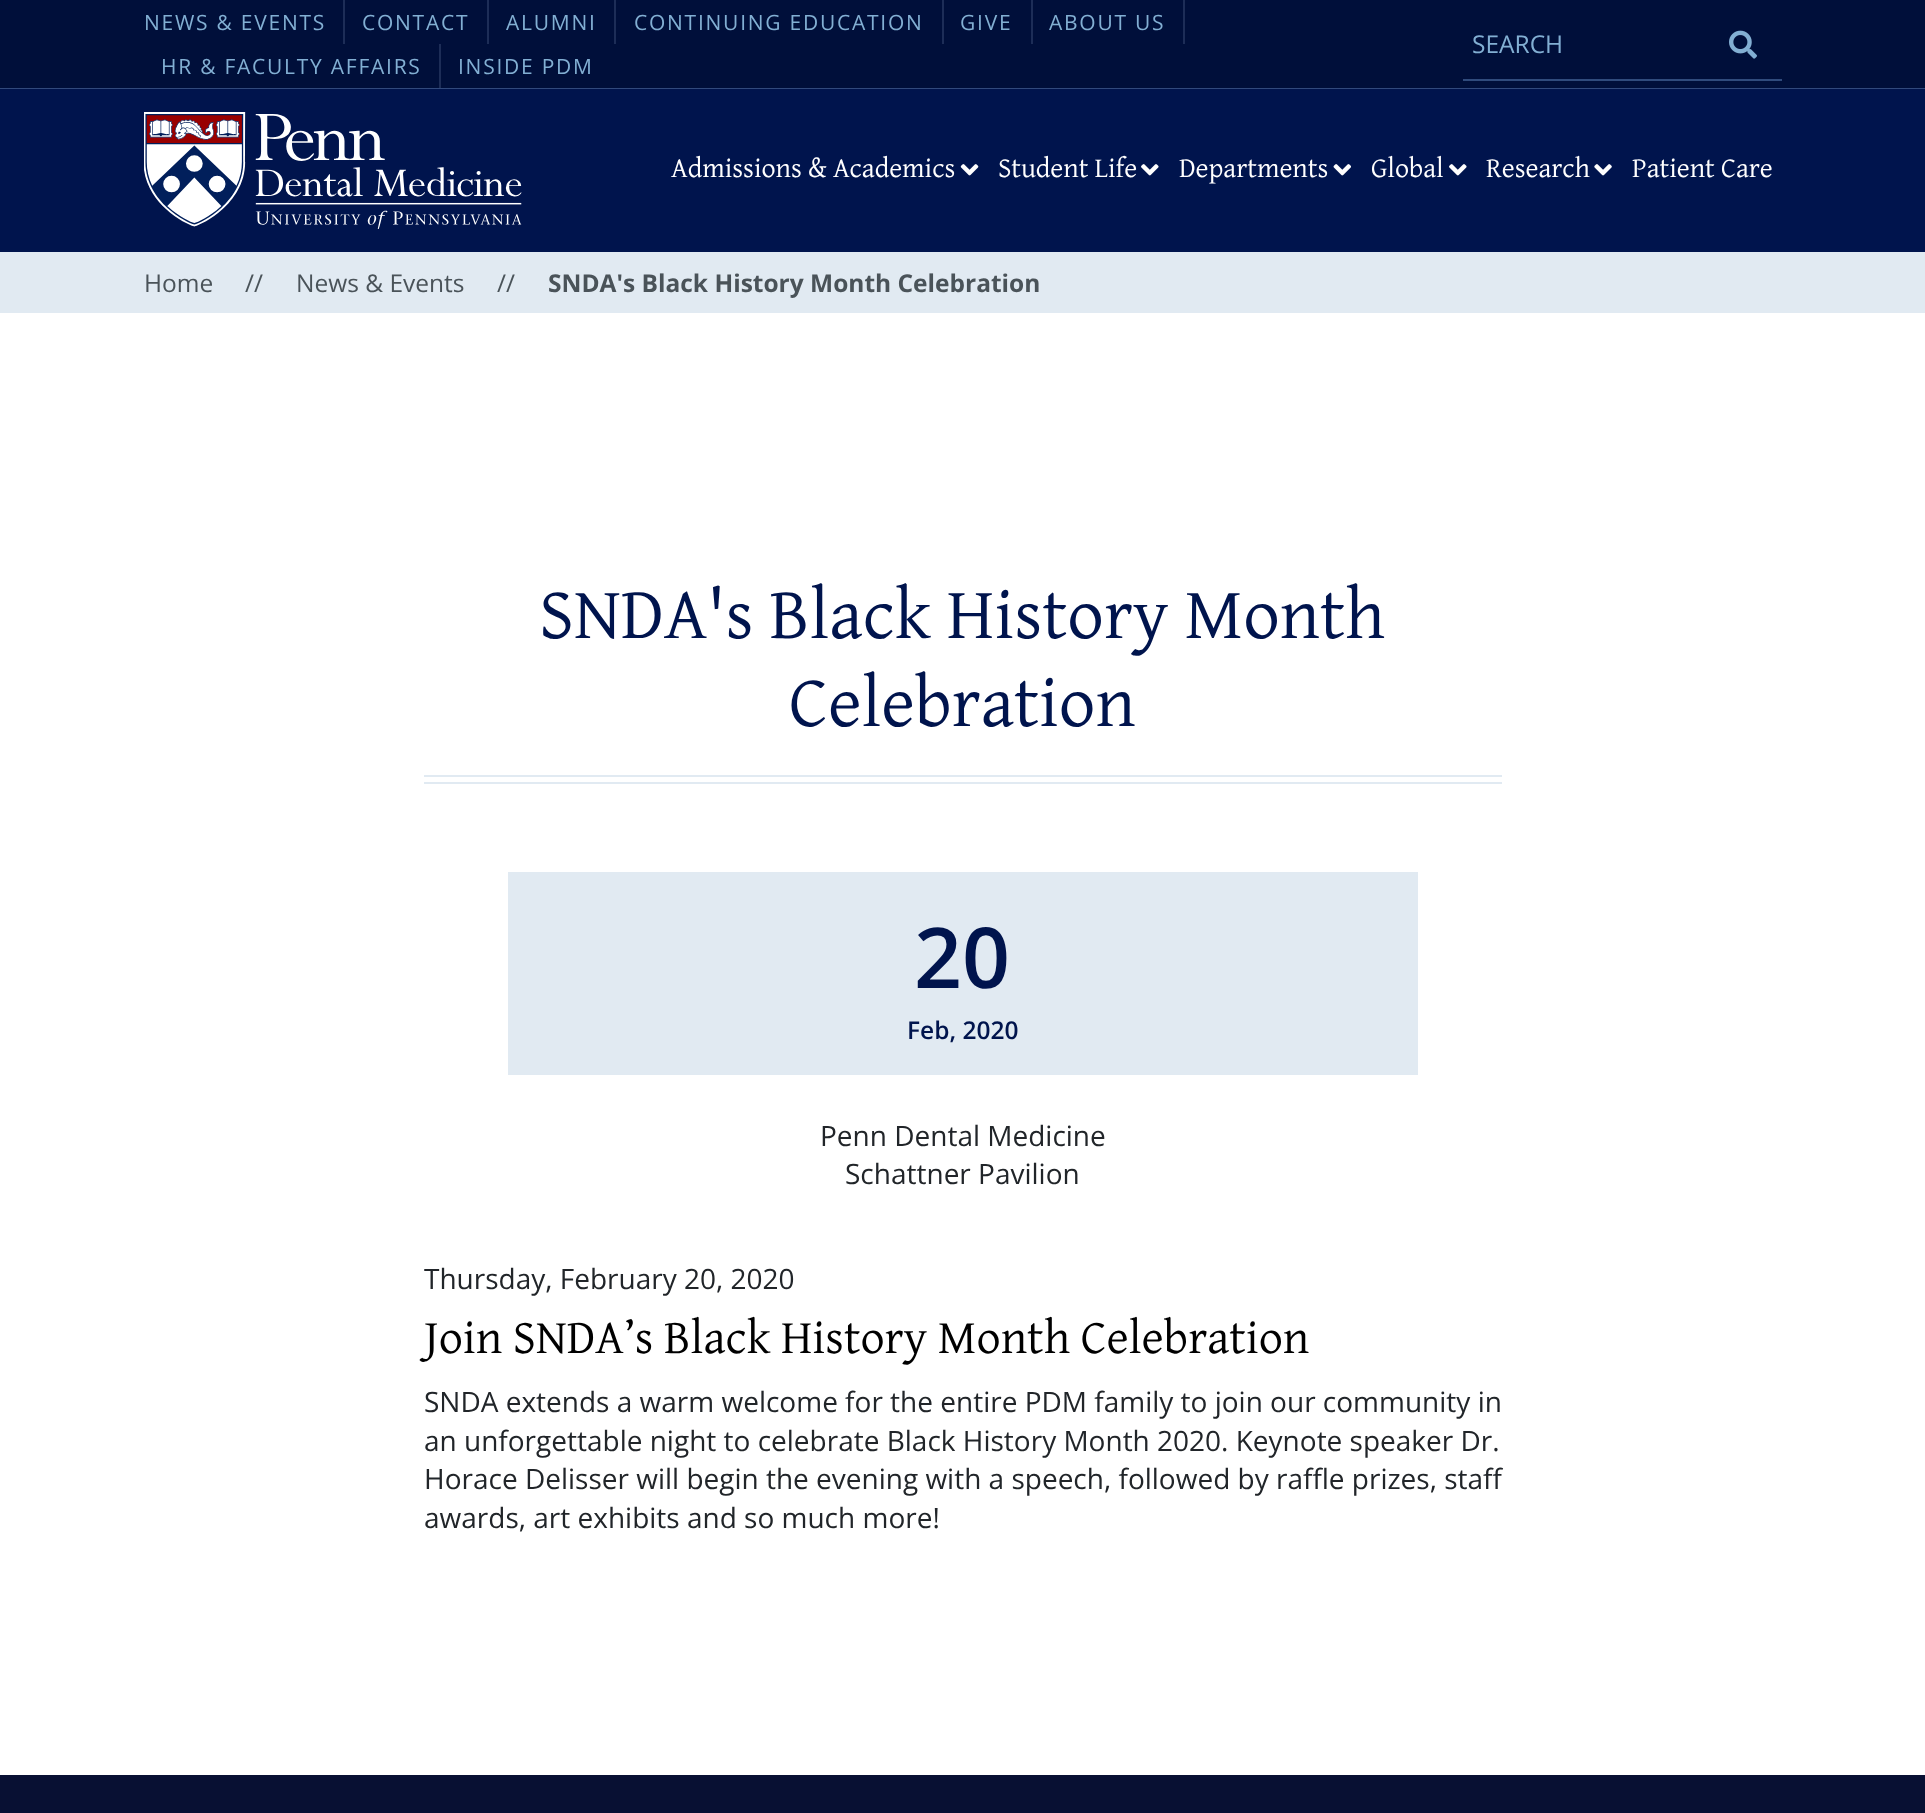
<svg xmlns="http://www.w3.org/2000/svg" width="1925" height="1813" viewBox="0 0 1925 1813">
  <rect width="100%" height="100%" fill="rgb(255,255,255)"/>
  <rect x="0" y="0" width="1925" height="88" fill="rgb(0,15,58)"/>
  <rect x="0" y="88" width="1925" height="1" fill="rgb(49,73,124)"/>
  <rect x="343" y="0" width="2" height="44" fill="rgb(29,45,87)"/>
  <text x="144" y="30" font-family="Open Sans" font-size="21" letter-spacing="1.75" fill="rgb(130,175,211)">NEWS &amp; EVENTS</text>
  <rect x="487" y="0" width="2" height="44" fill="rgb(29,45,87)"/>
  <text x="362" y="30" font-family="Open Sans" font-size="21" letter-spacing="1.75" fill="rgb(130,175,211)">CONTACT</text>
  <rect x="614" y="0" width="2" height="44" fill="rgb(29,45,87)"/>
  <text x="506" y="30" font-family="Open Sans" font-size="21" letter-spacing="1.75" fill="rgb(130,175,211)">ALUMNI</text>
  <rect x="942" y="0" width="2" height="44" fill="rgb(29,45,87)"/>
  <text x="634" y="30" font-family="Open Sans" font-size="21" letter-spacing="1.75" fill="rgb(130,175,211)">CONTINUING EDUCATION</text>
  <rect x="1031" y="0" width="2" height="44" fill="rgb(29,45,87)"/>
  <text x="960" y="30" font-family="Open Sans" font-size="21" letter-spacing="1.75" fill="rgb(130,175,211)">GIVE</text>
  <rect x="1183" y="0" width="2" height="44" fill="rgb(29,45,87)"/>
  <text x="1049" y="30" font-family="Open Sans" font-size="21" letter-spacing="1.75" fill="rgb(130,175,211)">ABOUT US</text>
  <rect x="439" y="44" width="2" height="44" fill="rgb(29,45,87)"/>
  <g font-family="Open Sans" font-size="21" letter-spacing="1.75" fill="rgb(130,175,211)">
    <text x="161" y="74">HR &amp; FACULTY AFFAIRS</text>
    <text x="458" y="74">INSIDE PDM</text>
  </g>
  <rect x="1463" y="79" width="319" height="2" fill="rgb(48,75,124)"/>
  <text x="1472" y="53" font-family="Open Sans" font-size="24.5" fill="rgb(130,175,211)">SEARCH</text>
  <image x="1729" y="30" width="28" height="29" href="pic1.png"/>
  <rect x="0" y="89" width="1925" height="163" fill="rgb(0,20,77)"/>
  <image x="144" y="112" width="378" height="117" href="pic2.png"/>
  <text x="671" y="177" font-family="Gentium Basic" font-size="28" fill="rgb(255,255,255)">Admissions &amp; Academics</text>
  <image x="960" y="164" width="19" height="12" href="pic3.png"/>
  <text x="998" y="177" font-family="Gentium Basic" font-size="28" fill="rgb(255,255,255)">Student Life</text>
  <image x="1141" y="164" width="18" height="12" href="pic4.png"/>
  <text x="1179" y="177" font-family="Gentium Basic" font-size="28" fill="rgb(255,255,255)">Departments</text>
  <image x="1333" y="164" width="18" height="12" href="pic5.png"/>
  <text x="1371" y="177" font-family="Gentium Basic" font-size="28" fill="rgb(255,255,255)">Global</text>
  <image x="1449" y="164" width="18" height="12" href="pic4.png"/>
  <text x="1486" y="177" font-family="Gentium Basic" font-size="28" fill="rgb(255,255,255)">Research</text>
  <image x="1594" y="164" width="18" height="12" href="pic6.png"/>
  <text x="1632" y="177" font-family="Gentium Basic" font-size="28" fill="rgb(255,255,255)">Patient Care</text>
  <rect x="0" y="252" width="1925" height="61" fill="rgb(225,234,242)"/>
  <g font-family="Open Sans" font-size="24.5" fill="rgb(74,83,89)">
    <text x="144" y="292">Home</text>
    <text x="245" y="292">//</text>
    <text x="296" y="292">News &amp; Events</text>
    <text x="497" y="292">//</text>
  </g>
  <text x="548" y="292" font-family="Open Sans" font-size="24.5" font-weight="bold" fill="rgb(74,83,89)">SNDA's Black History Month Celebration</text>
  <g font-family="Gentium Basic" font-size="72.75" fill="rgb(0,20,77)">
    <text x="539" y="638">SNDA's Black History Month</text>
    <text x="789" y="726">Celebration</text>
  </g>
  <rect x="424" y="775" width="1078" height="2" fill="rgb(225,234,242)"/>
  <rect x="424" y="782" width="1078" height="2" fill="rgb(225,234,242)"/>
  <rect x="508" y="872" width="910" height="203" fill="rgb(225,234,242)"/>
  <text x="914" y="988" font-family="Open Sans" font-size="84" font-weight="600" fill="rgb(0,20,77)">20</text>
  <text x="907" y="1039" font-family="Open Sans" font-size="24.5" font-weight="600" fill="rgb(0,20,77)">Feb, 2020</text>
  <g font-family="Open Sans" font-size="28" fill="rgb(33,37,41)">
    <text x="820" y="1146">Penn Dental Medicine</text>
    <text x="845" y="1184">Schattner Pavilion</text>
    <text x="424" y="1289">Thursday, February 20, 2020</text>
  </g>
  <text x="424" y="1353" font-family="Gentium Basic" font-size="48" fill="rgb(0,0,0)">Join SNDA’s Black History Month Celebration</text>
  <g font-family="Open Sans" font-size="28" fill="rgb(33,37,41)">
    <text>
      <tspan x="424" y="1412">SNDA extends a warm welcome for the entire PDM family to join our community in</tspan>
      <tspan x="424" y="1451">an unforgettable night to celebrate Black History Month 2020. Keynote speaker Dr.</tspan>
      <tspan x="424" y="1489">Horace Delisser will begin the evening with a speech, followed by raffle prizes, staff</tspan>
      <tspan x="424" y="1528">awards, art exhibits and so much more!</tspan>
    </text>
  </g>
  <rect x="0" y="1775" width="1925" height="38" fill="rgb(8,16,51)"/>
</svg>
